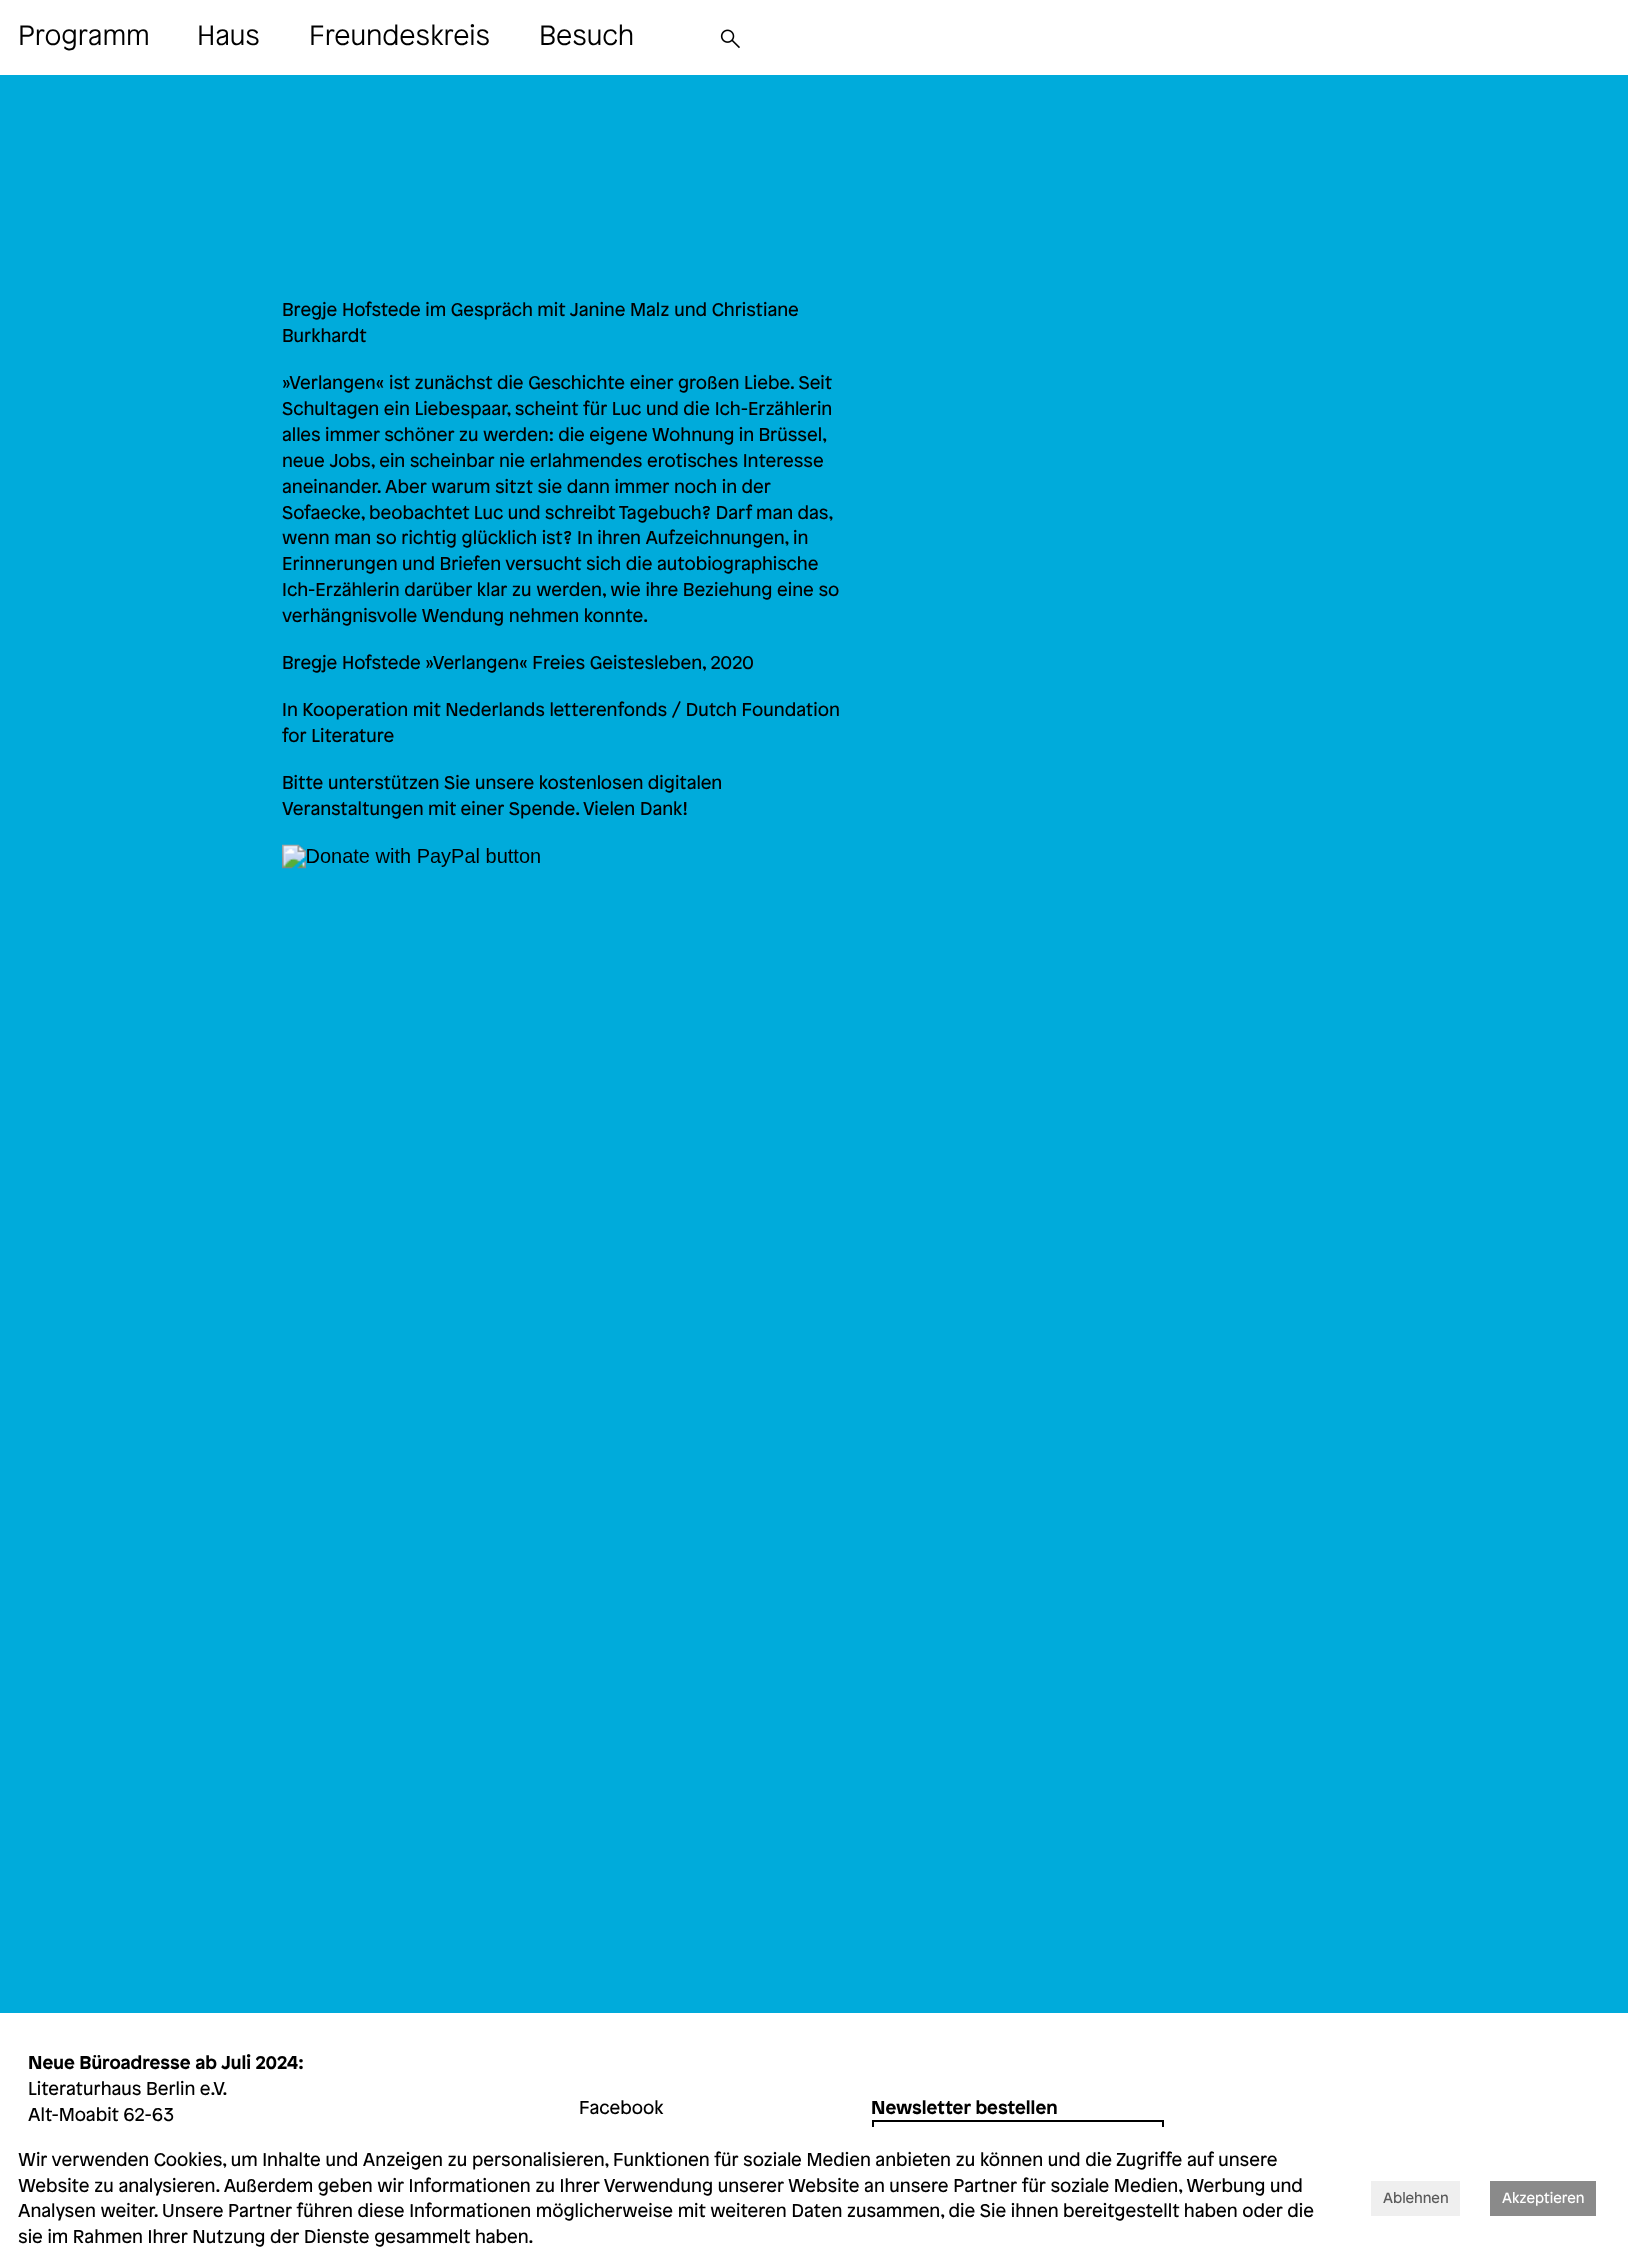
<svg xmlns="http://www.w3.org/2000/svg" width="1628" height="2268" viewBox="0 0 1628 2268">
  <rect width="100%" height="100%" fill="rgb(255,255,255)"/>
  <g font-family="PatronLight" font-size="27.75" font-weight="300" fill="rgb(0,0,0)">
    <text x="18" y="45">Programm</text>
    <text x="197" y="45">Haus</text>
    <text x="309" y="45">Freundeskreis</text>
    <text x="539" y="45">Besuch</text>
  </g>
  <image x="720" y="29" width="20" height="20" href="pic1.png"/>
  <rect x="0" y="75" width="1628" height="1938" fill="rgb(0,171,219)"/>
  <g font-family="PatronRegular" font-size="18.45" fill="rgb(0,0,0)">
    <text>
      <tspan x="282" y="316">Bregje Hofstede im Gespräch mit Janine Malz und Christiane</tspan>
      <tspan x="282" y="342">Burkhardt</tspan>
    </text>
    <text>
      <tspan x="282" y="389">»Verlangen« ist zunächst die Geschichte einer großen Liebe. Seit</tspan>
      <tspan x="282" y="415">Schultagen ein Liebespaar, scheint für Luc und die Ich-Erzählerin</tspan>
      <tspan x="282" y="441" word-spacing="-0.25">alles immer schöner zu werden: die eigene Wohnung in Brüssel,</tspan>
      <tspan x="282" y="467">neue Jobs, ein scheinbar nie erlahmendes erotisches Interesse</tspan>
      <tspan x="282" y="493">aneinander. Aber warum sitzt sie dann immer noch in der</tspan>
      <tspan x="282" y="519" word-spacing="-0.25">Sofaecke, beobachtet Luc und schreibt Tagebuch? Darf man das,</tspan>
      <tspan x="282" y="544">wenn man so richtig glücklich ist? In ihren Aufzeichnungen, in</tspan>
      <tspan x="282" y="570">Erinnerungen und Briefen versucht sich die autobiographische</tspan>
      <tspan x="282" y="596">Ich-Erzählerin darüber klar zu werden, wie ihre Beziehung eine so</tspan>
      <tspan x="282" y="622">verhängnisvolle Wendung nehmen konnte.</tspan>
    </text>
    <text x="282" y="669">Bregje Hofstede »Verlangen« Freies Geistesleben, 2020</text>
    <text>
      <tspan x="282" y="716">In Kooperation mit Nederlands letterenfonds / Dutch Foundation</tspan>
      <tspan x="282" y="742">for Literature</tspan>
    </text>
    <text>
      <tspan x="282" y="789">Bitte unterstützen Sie unsere kostenlosen digitalen</tspan>
      <tspan x="282" y="815">Veranstaltungen mit einer Spende. Vielen Dank!</tspan>
    </text>
  </g>
  <image x="282" y="844" width="258" height="25" href="pic2.png"/>
  <text x="28" y="2069" font-family="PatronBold" font-size="18.45" font-weight="bold" fill="rgb(0,0,0)">Neue Büroadresse ab Juli 2024:</text>
  <g font-family="PatronRegular" font-size="18.45" fill="rgb(0,0,0)">
    <text>
      <tspan x="28" y="2095">Literaturhaus Berlin e.V.</tspan>
      <tspan x="28" y="2121">Alt-Moabit 62-63</tspan>
    </text>
    <text x="579" y="2114">Facebook</text>
  </g>
  <text x="871" y="2114" font-family="PatronBold" font-size="18.45" font-weight="bold" fill="rgb(0,0,0)">Newsletter bestellen</text>
  <rect x="873" y="2121" width="290" height="35" fill="none" stroke="rgb(0,0,0)" stroke-width="2"/>
  <rect x="872" y="2127" width="292" height="30" fill="rgb(255,255,255)"/>
  <g font-family="PatronRegular" font-size="18.45" fill="rgb(0,0,0)">
    <text>
      <tspan x="18" y="2166">Wir verwenden Cookies, um Inhalte und Anzeigen zu personalisieren, Funktionen für soziale Medien anbieten zu können und die Zugriffe auf unsere</tspan>
      <tspan x="18" y="2192">Website zu analysieren. Außerdem geben wir Informationen zu Ihrer Verwendung unserer Website an unsere Partner für soziale Medien, Werbung und</tspan>
      <tspan x="18" y="2217">Analysen weiter. Unsere Partner führen diese Informationen möglicherweise mit weiteren Daten zusammen, die Sie ihnen bereitgestellt haben oder die</tspan>
      <tspan x="18" y="2243">sie im Rahmen Ihrer Nutzung der Dienste gesammelt haben.</tspan>
    </text>
  </g>
  <rect x="1371" y="2181" width="89" height="35" fill="rgb(239,239,239)"/>
  <text x="1383" y="2203" font-family="PatronRegular" font-size="14.75" fill="rgb(90,90,90)">Ablehnen</text>
  <rect x="1490" y="2181" width="106" height="35" fill="rgb(138,138,138)"/>
  <text x="1502" y="2203" font-family="PatronRegular" font-size="14.75" fill="rgb(255,255,255)">Akzeptieren</text>
</svg>
